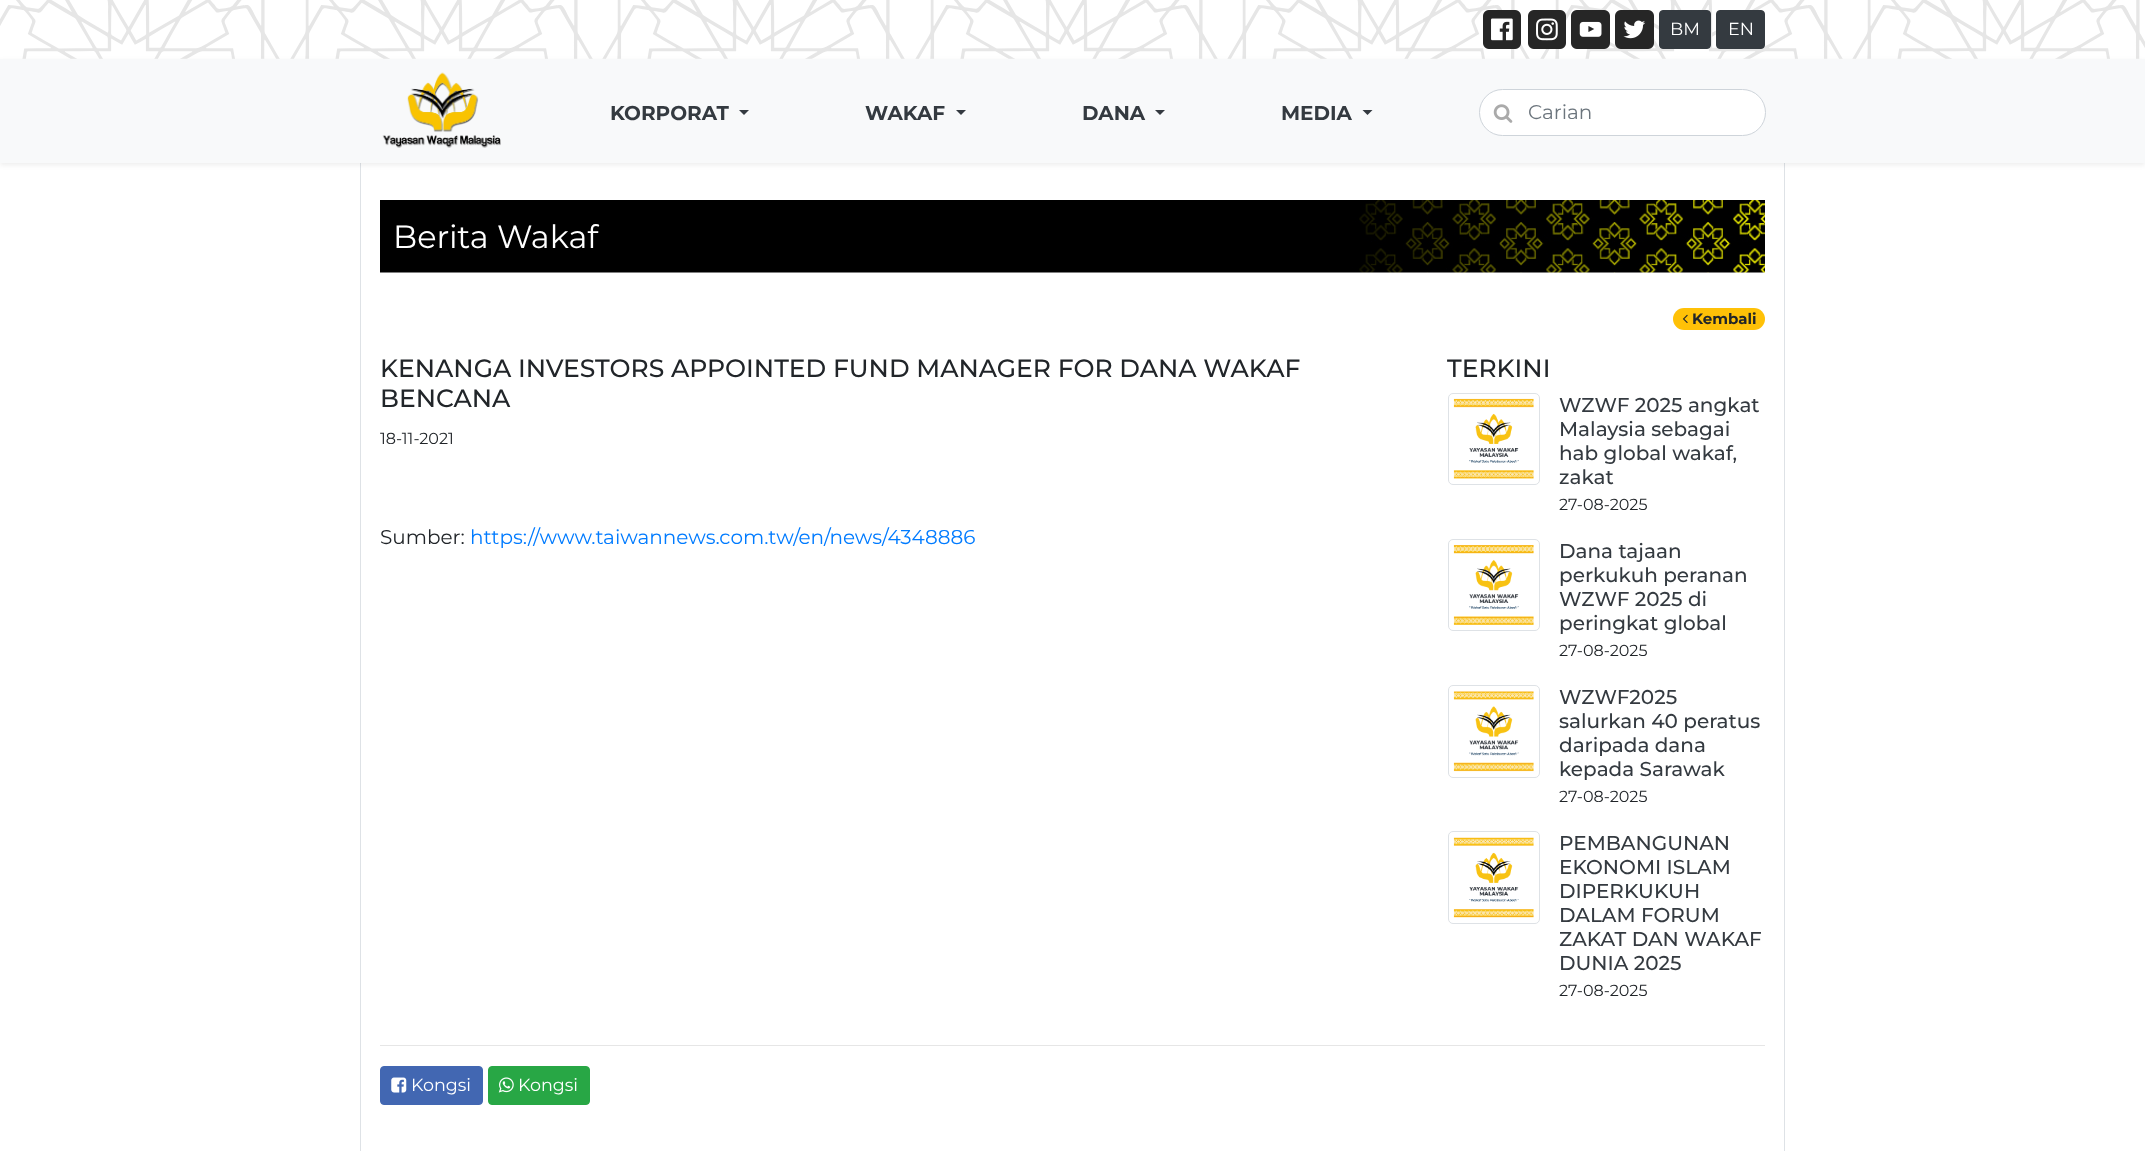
<svg xmlns="http://www.w3.org/2000/svg" width="2145" height="1151" viewBox="0 0 2145 1151">
  <rect width="100%" height="100%" fill="rgb(255,255,255)"/>
  <image x="0" y="0" width="2145" height="59" href="pic1.png"/>
  <image x="1483" y="10" width="38" height="39" href="pic2.png"/>
  <image x="1528" y="10" width="38" height="39" href="pic3.png"/>
  <image x="1571" y="10" width="39" height="39" href="pic4.png"/>
  <image x="1615" y="10" width="39" height="39" href="pic5.png"/>
  <rect x="1659.5" y="10.5" width="51" height="38" rx="3.5" fill="rgb(52,58,64)" stroke="rgb(52,58,64)"/>
  <text x="1670" y="35" font-family="Montserrat" font-size="17.5" fill="rgb(255,255,255)">BM</text>
  <rect x="1716.5" y="10.5" width="48" height="38" rx="3.5" fill="rgb(52,58,64)" stroke="rgb(52,58,64)"/>
  <text x="1728" y="35" font-family="Montserrat" font-size="17.5" fill="rgb(255,255,255)">EN</text>
  <rect x="1784" y="163" width="1" height="988" fill="rgb(222,226,230)"/>
  <rect x="360" y="163" width="1" height="988" fill="rgb(222,226,230)"/>
  <rect x="0" y="61" width="2145" height="104" fill="rgba(0,0,0,0.07)" filter="blur(2.5px)"/>
  <rect x="0" y="59" width="2145" height="104" fill="rgb(248,249,250)"/>
  <image x="382" y="72" width="119" height="76" href="pic6.png"/>
  <text x="610" y="120" font-family="Montserrat" font-size="20" font-weight="bold" fill="rgb(52,58,64)">KORPORAT</text>
  <path d="M739 110H749L744 115Z" fill="rgb(52,58,64)"/>
  <text x="865" y="120" font-family="Montserrat" font-size="20" font-weight="bold" fill="rgb(52,58,64)">WAKAF</text>
  <path d="M956 110H966L961 115Z" fill="rgb(52,58,64)"/>
  <text x="1082" y="120" font-family="Montserrat" font-size="20" font-weight="bold" fill="rgb(52,58,64)">DANA</text>
  <path d="M1155 110H1165L1160 115Z" fill="rgb(52,58,64)"/>
  <text x="1281" y="120" font-family="Montserrat" font-size="20" font-weight="bold" fill="rgb(52,58,64)">MEDIA</text>
  <path d="M1362.5 110H1372.5L1367.5 115Z" fill="rgb(52,58,64)"/>
  <rect x="1479.5" y="89.5" width="286" height="46" rx="23" fill="rgb(255,255,255)" stroke="rgb(206,212,218)"/>
  <image x="1493" y="104" width="20" height="19" href="pic7.png"/>
  <text x="1528" y="119" font-family="Montserrat" font-size="20" fill="rgb(108,117,125)">Carian</text>
  <image x="380" y="200" width="1385" height="73" href="pic8.png"/>
  <text x="393" y="248" font-family="Montserrat" font-size="32" fill="rgb(255,255,255)">Berita Wakaf</text>
  <rect x="1673" y="308" width="92" height="22" rx="11" fill="rgb(255,193,7)"/>
  <image x="1682" y="314" width="6" height="9" href="pic9.png"/>
  <text x="1692" y="324" font-family="Montserrat" font-size="15" font-weight="bold" fill="rgb(33,37,41)">Kembali</text>
  <g font-family="Montserrat" font-size="25" font-weight="500" fill="rgb(33,37,41)">
    <text>
      <tspan x="380" y="377">KENANGA INVESTORS APPOINTED FUND MANAGER FOR DANA WAKAF</tspan>
      <tspan x="380" y="407">BENCANA</tspan>
    </text>
  </g>
  <text x="380" y="444" font-family="Montserrat" font-size="16" fill="rgb(33,37,41)">18-11-2021</text>
  <text x="380" y="544" font-family="Montserrat" font-size="20" fill="rgb(33,37,41)">Sumber:</text>
  <text x="470" y="544" font-family="Montserrat" font-size="20" fill="rgb(0,123,255)">https://www.taiwannews.com.tw/en/news/4348886</text>
  <text x="1447" y="377" font-family="Montserrat" font-size="25" font-weight="500" fill="rgb(33,37,41)">TERKINI</text>
  <rect x="1448.5" y="393.5" width="91" height="91" rx="4.5" fill="none" stroke="rgb(222,226,230)"/>
  <image x="1453" y="398" width="81" height="81" href="pic10.png"/>
  <g font-family="Montserrat" font-size="20" font-weight="500" fill="rgb(52,58,64)">
    <text>
      <tspan x="1559" y="412">WZWF 2025 angkat</tspan>
      <tspan x="1559" y="436">Malaysia sebagai</tspan>
      <tspan x="1559" y="460">hab global wakaf,</tspan>
      <tspan x="1559" y="484">zakat</tspan>
    </text>
  </g>
  <text x="1559" y="510" font-family="Montserrat" font-size="16" fill="rgb(33,37,41)">27-08-2025</text>
  <rect x="1448.5" y="539.5" width="91" height="91" rx="4.5" fill="none" stroke="rgb(222,226,230)"/>
  <image x="1453" y="545" width="81" height="80" href="pic11.png"/>
  <g font-family="Montserrat" font-size="20" font-weight="500" fill="rgb(52,58,64)">
    <text>
      <tspan x="1559" y="558">Dana tajaan</tspan>
      <tspan x="1559" y="582">perkukuh peranan</tspan>
      <tspan x="1559" y="606">WZWF 2025 di</tspan>
      <tspan x="1559" y="630">peringkat global</tspan>
    </text>
  </g>
  <text x="1559" y="656" font-family="Montserrat" font-size="16" fill="rgb(33,37,41)">27-08-2025</text>
  <rect x="1448.5" y="685.5" width="91" height="92" rx="4.5" fill="none" stroke="rgb(222,226,230)"/>
  <image x="1453" y="691" width="81" height="81" href="pic12.png"/>
  <g font-family="Montserrat" font-size="20" font-weight="500" fill="rgb(52,58,64)">
    <text>
      <tspan x="1559" y="704">WZWF2025</tspan>
      <tspan x="1559" y="728">salurkan 40 peratus</tspan>
      <tspan x="1559" y="752">daripada dana</tspan>
      <tspan x="1559" y="776">kepada Sarawak</tspan>
    </text>
  </g>
  <text x="1559" y="802" font-family="Montserrat" font-size="16" fill="rgb(33,37,41)">27-08-2025</text>
  <rect x="1448.5" y="831.5" width="91" height="92" rx="4.5" fill="none" stroke="rgb(222,226,230)"/>
  <image x="1453" y="837" width="81" height="81" href="pic13.png"/>
  <g font-family="Montserrat" font-size="20" font-weight="500" fill="rgb(52,58,64)">
    <text>
      <tspan x="1559" y="850">PEMBANGUNAN</tspan>
      <tspan x="1559" y="874">EKONOMI ISLAM</tspan>
      <tspan x="1559" y="898">DIPERKUKUH</tspan>
      <tspan x="1559" y="922">DALAM FORUM</tspan>
      <tspan x="1559" y="946">ZAKAT DAN WAKAF</tspan>
      <tspan x="1559" y="970">DUNIA 2025</tspan>
    </text>
  </g>
  <text x="1559" y="996" font-family="Montserrat" font-size="16" fill="rgb(33,37,41)">27-08-2025</text>
  <rect x="380" y="1045" width="1385" height="1" fill="rgb(230,230,230)"/>
  <rect x="380.5" y="1066.5" width="102" height="38" rx="3.5" fill="rgb(66,103,178)" stroke="rgb(66,103,178)"/>
  <image x="391" y="1077" width="16" height="16" href="pic14.png"/>
  <text x="411" y="1091" font-family="Montserrat" font-size="17.5" fill="rgb(255,255,255)">Kongsi</text>
  <rect x="488.5" y="1066.5" width="101" height="38" rx="3.5" fill="rgb(40,167,69)" stroke="rgb(40,167,69)"/>
  <image x="498" y="1077" width="16" height="16" href="pic15.png"/>
  <text x="518" y="1091" font-family="Montserrat" font-size="17.5" fill="rgb(255,255,255)">Kongsi</text>
</svg>
